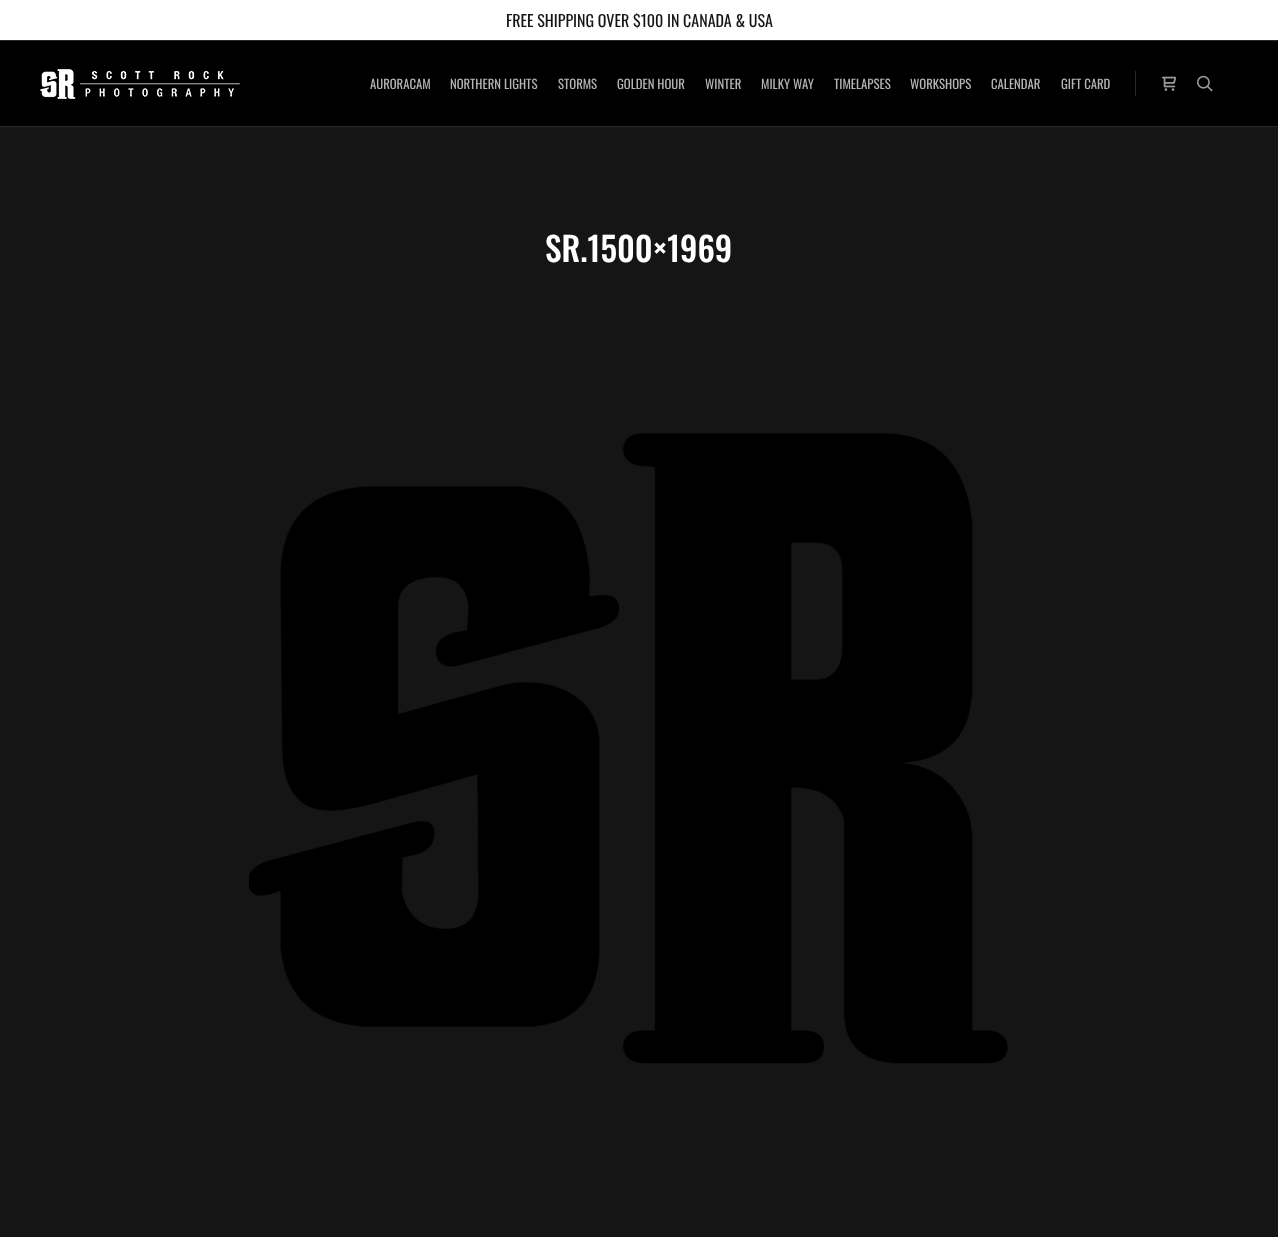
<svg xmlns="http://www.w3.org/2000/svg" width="1278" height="1237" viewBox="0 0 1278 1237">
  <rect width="100%" height="100%" fill="rgb(21,21,21)"/>
  <rect x="0" y="41" width="1278" height="85" fill="rgb(0,0,0)"/>
  <rect x="0" y="126" width="1278" height="1" fill="rgb(41,41,41)"/>
  <rect x="0" y="0" width="1278" height="40" fill="rgb(255,255,255)"/>
  <rect x="0" y="40" width="1278" height="1" fill="rgb(41,41,41)"/>
  <text x="506" y="27" font-family="Oswald" font-size="16" fill="rgb(21,21,21)">FREE SHIPPING OVER $100 IN CANADA &amp; USA</text>
  <image x="40" y="69" width="200" height="30" href="pic1.png"/>
  <g font-family="Oswald" font-size="12.75" fill="rgb(181,181,181)">
    <text x="370" y="89">AURORACAM</text>
    <text x="450" y="89">NORTHERN LIGHTS</text>
    <text x="558" y="89">STORMS</text>
    <text x="617" y="89">GOLDEN HOUR</text>
    <text x="705" y="89">WINTER</text>
    <text x="761" y="89">MILKY WAY</text>
    <text x="834" y="89">TIMELAPSES</text>
    <text x="910" y="89">WORKSHOPS</text>
    <text x="991" y="89">CALENDAR</text>
    <text x="1061" y="89">GIFT CARD</text>
  </g>
  <rect x="1135" y="71" width="1" height="25" fill="rgb(41,41,41)"/>
  <image x="1161" y="76" width="16" height="15" href="pic2.png"/>
  <image x="1197" y="75" width="16" height="17" href="pic3.png"/>
  <text x="545" y="262" font-family="Oswald" font-size="33.5" font-weight="500" fill="rgb(255,255,255)">SR.1500×1969</text>
  <image x="249" y="433" width="759" height="631" href="pic4.png"/>
</svg>
